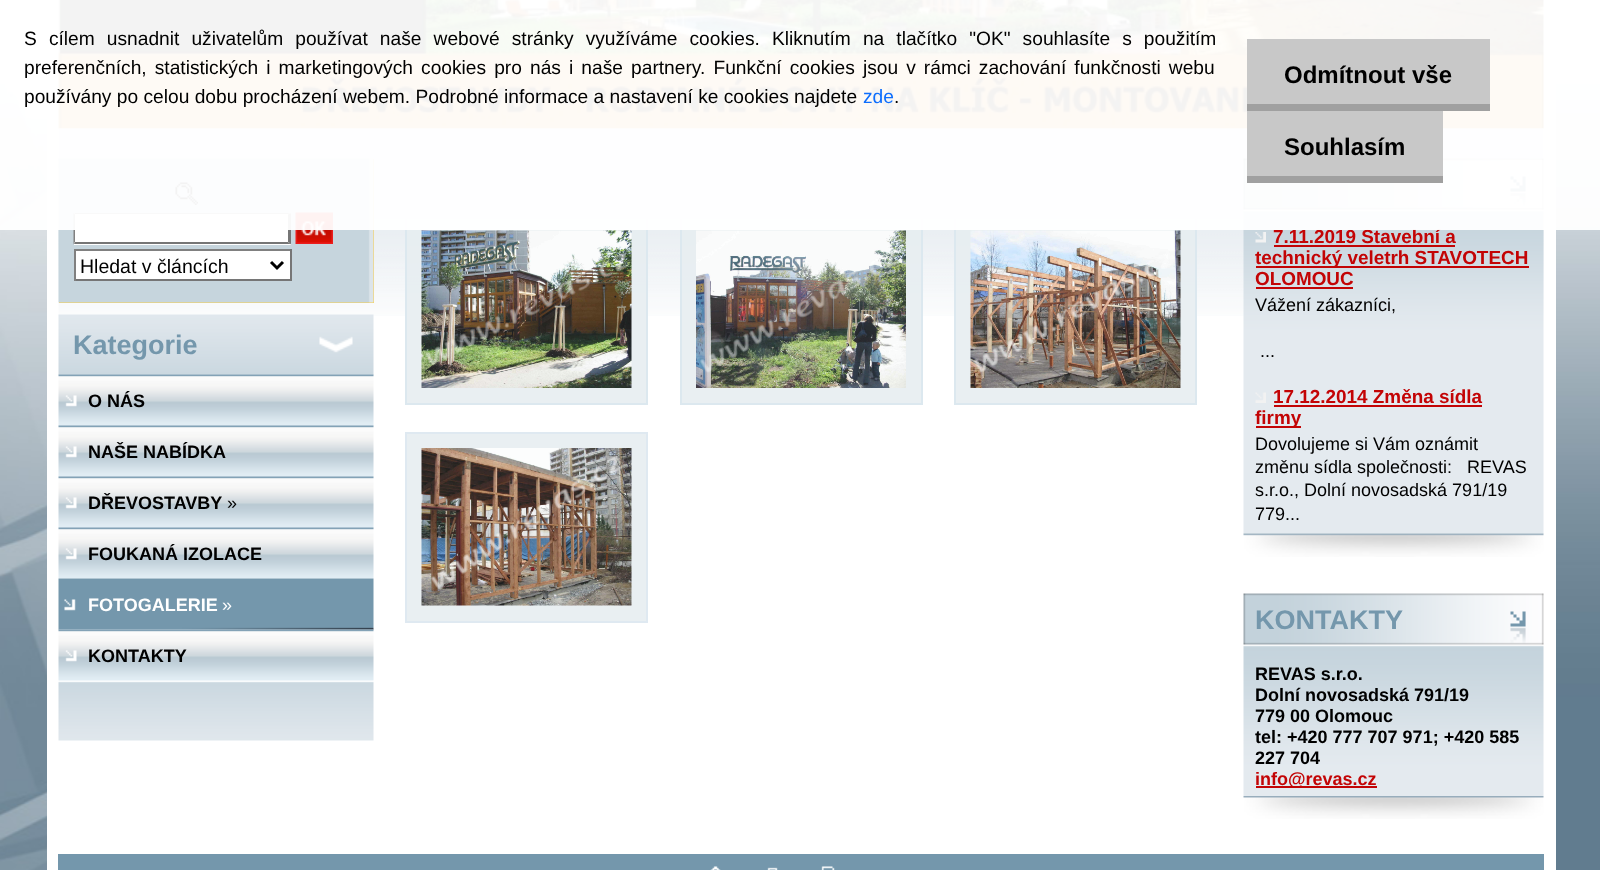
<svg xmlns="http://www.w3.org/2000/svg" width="1600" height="870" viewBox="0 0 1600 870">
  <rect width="100%" height="100%" fill="rgb(255,255,255)"/>
  <image x="0" y="0" width="1600" height="870" href="pic1.png"/>
  <rect x="47" y="0" width="1509" height="870" fill="rgb(255,255,255)"/>
  <image x="58" y="0" width="1486" height="129" href="pic2.png"/>
  <image x="58" y="128" width="1486" height="188" href="pic3.png"/>
  <rect x="59" y="159" width="315" height="144" fill="rgb(249,207,74)"/>
  <image x="58" y="158" width="316" height="145" href="pic4.png"/>
  <image x="175" y="182" width="23" height="23" href="pic5.png"/>
  <rect x="74" y="213" width="217" height="32" fill="rgb(255,255,255)"/>
  <path d="M74 213H291L288 214H75Z" fill="rgb(128,128,128)"/>
  <path d="M291 213V244.5L288 241.5V214.5Z" fill="rgb(118,118,118)"/>
  <path d="M291 244H74L75 242H288Z" fill="rgb(118,118,118)"/>
  <path d="M73.5 244.5V213L75 214.5V241.5Z" fill="rgb(128,128,128)"/>
  <image x="295" y="212" width="38" height="32" href="pic6.png"/>
  <rect x="407" y="229" width="239" height="174" fill="rgba(231,237,241,0.9)"/>
  <rect x="406" y="216" width="241" height="188" fill="none" stroke="rgb(220,232,239)" stroke-width="2"/>
  <rect x="682" y="229" width="239" height="174" fill="rgba(231,237,241,0.9)"/>
  <rect x="681" y="216" width="241" height="188" fill="none" stroke="rgb(220,232,239)" stroke-width="2"/>
  <rect x="956" y="229" width="239" height="174" fill="rgba(231,237,241,0.9)"/>
  <rect x="955" y="216" width="241" height="188" fill="none" stroke="rgb(220,232,239)" stroke-width="2"/>
  <image x="1243" y="158" width="301" height="376" href="pic17.png"/>
  <text x="1273" y="243" font-family="Liberation Sans" font-size="18.9" font-weight="bold" fill="rgb(195,4,5)">7.11.2019 Stavební a</text>
  <rect x="0" y="0" width="1600" height="230" fill="rgba(255,255,255,0.95)"/>
  <g font-family="Liberation Sans" font-size="19.2" fill="rgb(0,0,0)">
    <text>
      <tspan x="24" y="45" word-spacing="6.75">S cílem usnadnit uživatelům používat naše webové stránky využíváme cookies. Kliknutím na tlačítko "OK" souhlasíte s použitím</tspan>
      <tspan x="24" y="74" word-spacing="2.75">preferenčních, statistických i marketingových cookies pro nás i naše partnery. Funkční cookies jsou v rámci zachování funkčnosti webu</tspan>
      <tspan x="24" y="103">používány po celou dobu procházení webem. Podrobné informace a nastavení ke cookies najdete</tspan>
    </text>
  </g>
  <text x="863" y="103" font-family="Liberation Sans" font-size="19.2" fill="rgb(13,110,253)">zde</text>
  <text x="894" y="103" font-family="Liberation Sans" font-size="19.2" fill="rgb(0,0,0)">.</text>
  <rect x="1247" y="39" width="243" height="65" fill="rgb(200,200,200)"/>
  <rect x="1247" y="104" width="243" height="7" fill="rgb(160,160,160)"/>
  <text x="1284" y="83" font-family="Liberation Sans" font-size="24" font-weight="bold" fill="rgb(0,0,0)">Odmítnout vše</text>
  <rect x="1247" y="111" width="196" height="65" fill="rgb(200,200,200)"/>
  <rect x="1247" y="176" width="196" height="7" fill="rgb(160,160,160)"/>
  <text x="1284" y="155" font-family="Liberation Sans" font-size="24" font-weight="bold" fill="rgb(0,0,0)">Souhlasím</text>
  <rect x="76" y="251" width="214" height="28" fill="rgb(255,255,255)"/>
  <rect x="74" y="249" width="217" height="2" fill="rgb(128,128,128)"/>
  <rect x="290" y="249" width="2" height="32" fill="rgb(118,118,118)"/>
  <rect x="74" y="279" width="217" height="2" fill="rgb(118,118,118)"/>
  <rect x="74" y="249" width="2" height="32" fill="rgb(128,128,128)"/>
  <path d="M271 262L277 268L283 262" fill="none" stroke="rgb(0,0,0)" stroke-width="3"/>
  <text x="80" y="273" font-family="Liberation Sans" font-size="19.5" fill="rgb(0,0,0)">Hledat v článcích</text>
  <image x="58" y="314" width="316" height="61" href="pic7.png"/>
  <text x="73" y="354" font-family="Liberation Sans" font-size="27" font-weight="bold" fill="rgb(116,151,172)">Kategorie</text>
  <image x="58" y="374" width="316" height="52" href="pic8.png"/>
  <text x="88" y="407" font-family="Liberation Sans" font-size="18" font-weight="bold" fill="rgb(0,0,0)">O NÁS</text>
  <image x="58" y="425" width="316" height="52" href="pic9.png"/>
  <text x="88" y="458" font-family="Liberation Sans" font-size="18" font-weight="bold" fill="rgb(0,0,0)">NAŠE NABÍDKA</text>
  <image x="58" y="476" width="316" height="52" href="pic9.png"/>
  <text x="88" y="509" font-family="Liberation Sans" font-size="18" font-weight="bold" fill="rgb(0,0,0)">DŘEVOSTAVBY</text>
  <text x="227" y="509" font-family="Liberation Sans" font-size="18" fill="rgb(0,0,0)">»</text>
  <image x="58" y="527" width="316" height="52" href="pic9.png"/>
  <text x="88" y="560" font-family="Liberation Sans" font-size="18" font-weight="bold" fill="rgb(0,0,0)">FOUKANÁ IZOLACE</text>
  <image x="58" y="578" width="316" height="52" href="pic10.png"/>
  <text x="88" y="611" font-family="Liberation Sans" font-size="18" font-weight="bold" fill="rgb(255,255,255)">FOTOGALERIE</text>
  <text x="222" y="611" font-family="Liberation Sans" font-size="18" fill="rgb(255,255,255)">»</text>
  <image x="58" y="629" width="316" height="52" href="pic11.png"/>
  <text x="88" y="662" font-family="Liberation Sans" font-size="18" font-weight="bold" fill="rgb(0,0,0)">KONTAKTY</text>
  <image x="58" y="681" width="316" height="60" href="pic12.png"/>
  <image x="421" y="230" width="211" height="158" href="pic13.png"/>
  <image x="696" y="230" width="210" height="158" href="pic14.png"/>
  <image x="970" y="230" width="211" height="158" href="pic15.png"/>
  <rect x="406" y="433" width="241" height="189" fill="rgb(233,239,242)" stroke="rgb(223,233,241)" stroke-width="2"/>
  <image x="421" y="448" width="211" height="158" href="pic16.png"/>
  <image x="1255" y="232" width="11" height="11" href="pic18.png"/>
  <rect x="1274" y="245" width="181" height="2" fill="rgb(195,4,5)"/>
  <rect x="1256" y="266" width="273" height="2" fill="rgb(195,4,5)"/>
  <g font-family="Liberation Sans" font-size="18.9" font-weight="bold" fill="rgb(195,4,5)">
    <text>
      <tspan x="1255" y="264">technický veletrh STAVOTECH</tspan>
      <tspan x="1255" y="285">OLOMOUC</tspan>
    </text>
  </g>
  <rect x="1256" y="287" width="97" height="2" fill="rgb(195,4,5)"/>
  <g font-family="Liberation Sans" font-size="18" fill="rgb(0,0,0)">
    <text x="1255" y="311">Vážení zákazníci,</text>
    <text x="1260" y="357">...</text>
  </g>
  <image x="1255" y="392" width="11" height="11" href="pic19.png"/>
  <text x="1273" y="403" font-family="Liberation Sans" font-size="18.9" font-weight="bold" fill="rgb(195,4,5)">17.12.2014 Změna sídla</text>
  <rect x="1274" y="405" width="208" height="2" fill="rgb(195,4,5)"/>
  <rect x="1256" y="426" width="45" height="2" fill="rgb(195,4,5)"/>
  <text x="1255" y="424" font-family="Liberation Sans" font-size="18.9" font-weight="bold" fill="rgb(195,4,5)">firmy</text>
  <g font-family="Liberation Sans" font-size="18" fill="rgb(0,0,0)">
    <text xml:space="preserve"><tspan x="1255" y="450">Dovolujeme si Vám oznámit</tspan><tspan x="1255" y="473">změnu sídla společnosti:   REVAS</tspan><tspan x="1255" y="496">s.r.o., Dolní novosadská 791/19</tspan><tspan x="1255" y="520">779...</tspan></text>
  </g>
  <image x="1243" y="533" width="301" height="24" href="pic20.png"/>
  <image x="1243" y="593" width="301" height="203" href="pic21.png"/>
  <text x="1255" y="629" font-family="Liberation Sans" font-size="27" font-weight="bold" fill="rgb(116,151,172)">KONTAKTY</text>
  <g font-family="Liberation Sans" font-size="18" font-weight="bold" fill="rgb(0,0,0)">
    <text>
      <tspan x="1255" y="680">REVAS s.r.o.</tspan>
      <tspan x="1255" y="701">Dolní novosadská 791/19</tspan>
      <tspan x="1255" y="722">779 00 Olomouc</tspan>
      <tspan x="1255" y="743">tel: +420 777 707 971; +420 585</tspan>
      <tspan x="1255" y="764">227 704</tspan>
    </text>
  </g>
  <rect x="1256" y="786" width="121" height="2" fill="rgb(195,4,5)"/>
  <text x="1255" y="785" font-family="Liberation Sans" font-size="18" font-weight="bold" fill="rgb(195,4,5)">info@revas.cz</text>
  <image x="1243" y="796" width="301" height="23" href="pic22.png"/>
  <rect x="58" y="854" width="1486" height="16" fill="rgb(116,151,172)"/>
  <image x="710" y="866" width="11" height="4" href="pic23.png"/>
  <image x="767" y="867" width="11" height="3" href="pic24.png"/>
  <image x="821" y="866" width="14" height="4" href="pic25.png"/>
</svg>
